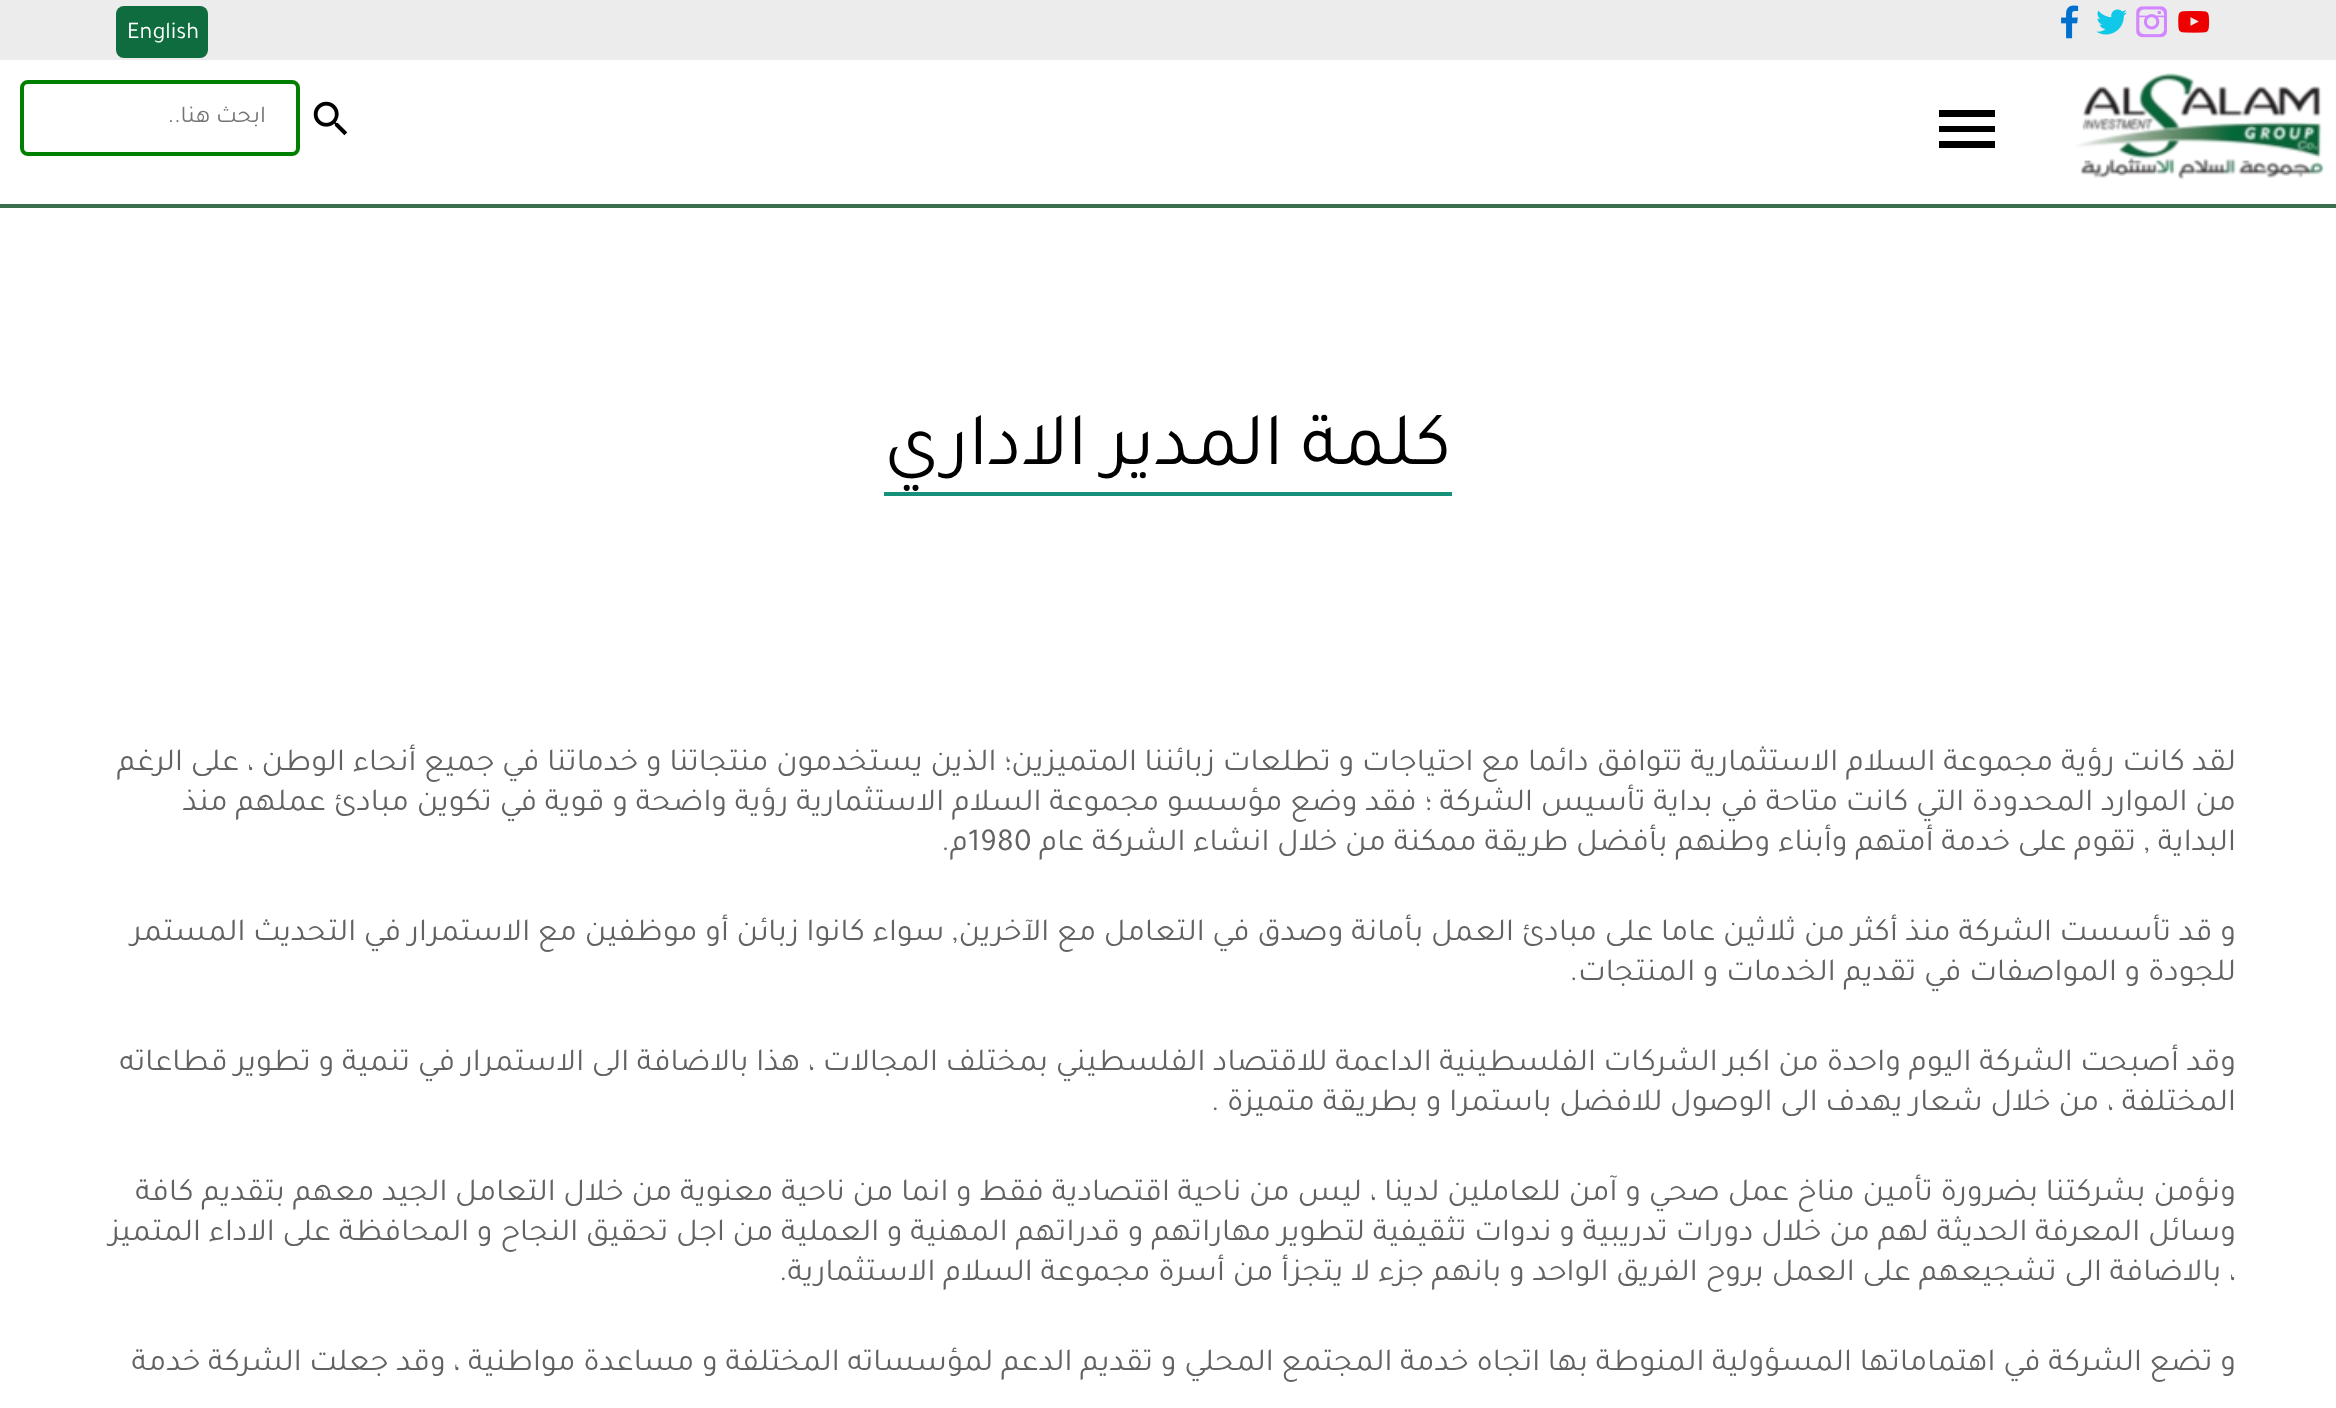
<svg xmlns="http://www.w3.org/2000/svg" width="2336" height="1408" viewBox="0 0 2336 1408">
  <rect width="100%" height="100%" fill="rgb(255,255,255)"/>
  <rect x="0" y="0" width="2336" height="60" fill="rgb(236,236,236)"/>
  <image x="2178" y="11" width="32" height="22" href="pic1.png"/>
  <image x="2136" y="6" width="31" height="32" href="pic2.png"/>
  <image x="2096" y="9" width="31" height="26" href="pic3.png"/>
  <image x="2061" y="5" width="18" height="34" href="pic4.png"/>
  <rect x="116" y="6" width="92" height="52" rx="8" fill="rgb(15,108,63)"/>
  <text x="127" y="38" font-family="Tajawal" font-size="24" fill="rgb(255,255,255)">English</text>
  <rect x="0" y="204" width="2336" height="4" fill="rgb(58,110,78)"/>
  <image x="2076" y="73" width="248" height="107" href="pic5.png"/>
  <path d="M1939 110H1995V117H1939ZM1939 132V126H1995V132ZM1939 148V141H1995V148Z" fill="rgb(0,0,0)"/>
  <image x="313" y="101" width="35" height="35" href="pic6.png"/>
  <rect x="22" y="82" width="276" height="72" rx="6" fill="none" stroke="rgb(0,128,0)" stroke-width="4"/>
  <text x="266" y="122" font-family="Tajawal" font-size="24" direction="rtl" fill="rgb(117,117,117)">ابحث هنا..</text>
  <rect x="884" y="492" width="568" height="4" fill="rgb(22,145,121)"/>
  <text x="1451" y="464" font-family="Tajawal" font-size="76" direction="rtl" fill="rgb(0,0,0)">كلمة المدير الاداري</text>
  <g font-family="Tajawal" font-size="32" direction="rtl" fill="rgb(98,98,98)">
    <text>
      <tspan x="2236" y="770">لقد كانت رؤية مجموعة السلام الاستثمارية تتوافق دائما مع احتياجات و تطلعات زبائننا المتميزين؛ الذين يستخدمون منتجاتنا و خدماتنا في جميع أنحاء الوطن ، على الرغم</tspan>
      <tspan x="2236" y="810">من الموارد المحدودة التي كانت متاحة في بداية تأسيس الشركة ؛ فقد وضع مؤسسو مجموعة السلام الاستثمارية رؤية واضحة و قوية في تكوين مبادئ عملهم منذ</tspan>
      <tspan x="2236" y="850">البداية , تقوم على خدمة أمتهم وأبناء وطنهم بأفضل طريقة ممكنة من خلال انشاء الشركة عام</tspan>
    </text>
  </g>
  <text x="968" y="850" font-family="Tajawal" font-size="32" fill="rgb(98,98,98)">1980</text>
  <g font-family="Tajawal" font-size="32" direction="rtl" fill="rgb(98,98,98)">
    <text x="968" y="850">م.</text>
    <text>
      <tspan x="2236" y="940">و قد تأسست الشركة منذ أكثر من ثلاثين عاما على مبادئ العمل بأمانة وصدق في التعامل مع الآخرين, سواء كانوا زبائن أو موظفين مع الاستمرار في التحديث المستمر</tspan>
      <tspan x="2236" y="980">للجودة و المواصفات في تقديم الخدمات و المنتجات.</tspan>
    </text>
    <text>
      <tspan x="2236" y="1070">وقد أصبحت الشركة اليوم واحدة من اكبر الشركات الفلسطينية الداعمة للاقتصاد الفلسطيني بمختلف المجالات ، هذا بالاضافة الى الاستمرار في تنمية و تطوير قطاعاته</tspan>
      <tspan x="2236" y="1110">المختلفة ، من خلال شعار يهدف الى الوصول للافضل باستمرا و بطريقة متميزة .</tspan>
    </text>
    <text>
      <tspan x="2236" y="1200">ونؤمن بشركتنا بضرورة تأمين مناخ عمل صحي و آمن للعاملين لدينا ، ليس من ناحية اقتصادية فقط و انما من ناحية معنوية من خلال التعامل الجيد معهم بتقديم كافة</tspan>
      <tspan x="2236" y="1240">وسائل المعرفة الحديثة لهم من خلال دورات تدريبية و ندوات تثقيفية لتطوير مهاراتهم و قدراتهم المهنية و العملية من اجل تحقيق النجاح و المحافظة على الاداء المتميز</tspan>
      <tspan x="2236" y="1280">، بالاضافة الى تشجيعهم على العمل بروح الفريق الواحد و بانهم جزء لا يتجزأ من أسرة مجموعة السلام الاستثمارية.</tspan>
    </text>
    <text x="2236" y="1370">و تضع الشركة في اهتماماتها المسؤولية المنوطة بها اتجاه خدمة المجتمع المحلي و تقديم الدعم لمؤسساته المختلفة و مساعدة مواطنية ، وقد جعلت الشركة خدمة</text>
  </g>
</svg>
